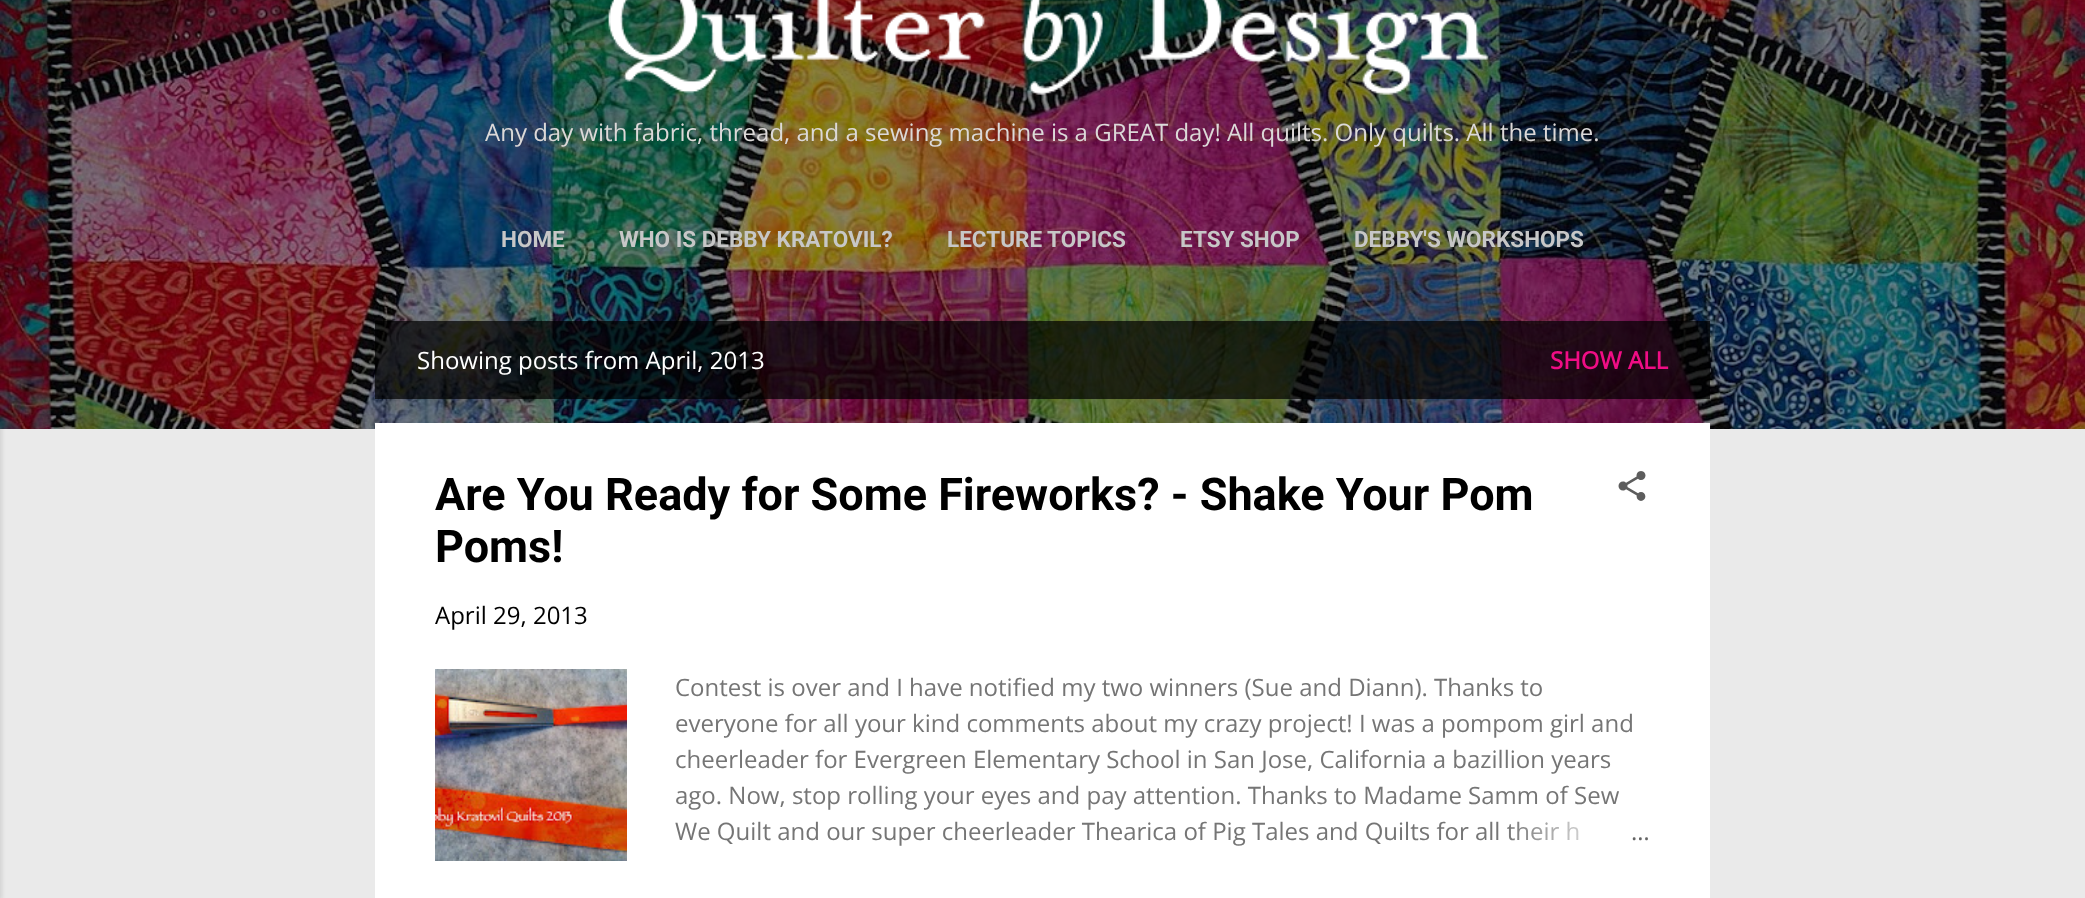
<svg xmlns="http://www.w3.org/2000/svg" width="2085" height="898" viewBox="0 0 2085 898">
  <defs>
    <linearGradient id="g1" gradientUnits="userSpaceOnUse" x1="1650" y1="831" x2="1506" y2="831"><stop offset="0" stop-color="rgb(255,255,255)"/><stop offset="0.2" stop-color="rgb(255,255,255)"/><stop offset="1" stop-color="rgb(255,255,255)" stop-opacity="0"/></linearGradient>
  </defs>
  <rect width="100%" height="100%" fill="rgb(234,234,234)"/>
  <image x="0" y="0" width="2085" height="429" href="pic1.png"/>
  <rect x="-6" y="2" width="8" height="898" fill="rgba(0,0,0,0.1)" filter="blur(2px)"/>
  <image x="608" y="0" width="881" height="95" href="pic2.png"/>
  <text x="485" y="141" font-family="Open Sans" font-size="24" fill="rgb(220,217,216)">Any day with fabric, thread, and a sewing machine is a GREAT day! All quilts. Only quilts. All the time.</text>
  <g font-family="Roboto" font-size="22.5" font-weight="bold" fill="rgb(199,199,199)">
    <text x="501" y="247">HOME</text>
    <text x="619" y="247">WHO IS DEBBY KRATOVIL?</text>
    <text x="947" y="247">LECTURE TOPICS</text>
    <text x="1180" y="247">ETSY SHOP</text>
    <text x="1354" y="247">DEBBY'S WORKSHOPS</text>
  </g>
  <rect x="375" y="321" width="1335" height="78" fill="rgba(0,0,0,0.7)"/>
  <text x="417" y="369" font-family="Open Sans" font-size="24" fill="rgb(255,255,255)">Showing posts from April, 2013</text>
  <text x="1550" y="369" font-family="Open Sans" font-size="24" font-weight="bold" fill="rgb(240,13,133)">SHOW ALL</text>
  <rect x="375" y="423" width="1335" height="475" fill="rgb(255,255,255)"/>
  <g font-family="Roboto" font-size="45" font-weight="bold" fill="rgb(0,0,0)">
    <text>
      <tspan x="435" y="510">Are You Ready for Some Fireworks? - Shake Your Pom</tspan>
      <tspan x="435" y="562">Poms!</tspan>
    </text>
  </g>
  <image x="1618" y="471" width="28" height="30" href="pic3.png"/>
  <text x="435" y="624" font-family="Open Sans" font-size="24" fill="rgb(0,0,0)">April 29, 2013</text>
  <image x="435" y="669" width="192" height="192" href="pic4.png"/>
  <g font-family="Open Sans" font-size="24" fill="rgb(117,117,117)">
    <text>
      <tspan x="675" y="696">Contest is over and I have notified my two winners (Sue and Diann). Thanks to</tspan>
      <tspan x="675" y="732">everyone for all your kind comments about my crazy project! I was a pompom girl and</tspan>
      <tspan x="675" y="768">cheerleader for Evergreen Elementary School in San Jose, California a bazillion years</tspan>
      <tspan x="675" y="804">ago. Now, stop rolling your eyes and pay attention. Thanks to Madame Samm of Sew</tspan>
      <tspan x="675" y="840">We Quilt and our super cheerleader Thearica of Pig Tales and Quilts for all their h</tspan>
    </text>
  </g>
  <rect x="1508" y="821" width="71" height="20" fill="url(#g1)"/>
  <text x="1631" y="840" font-family="Open Sans" font-size="24" fill="rgb(100,100,100)">…</text>
</svg>
